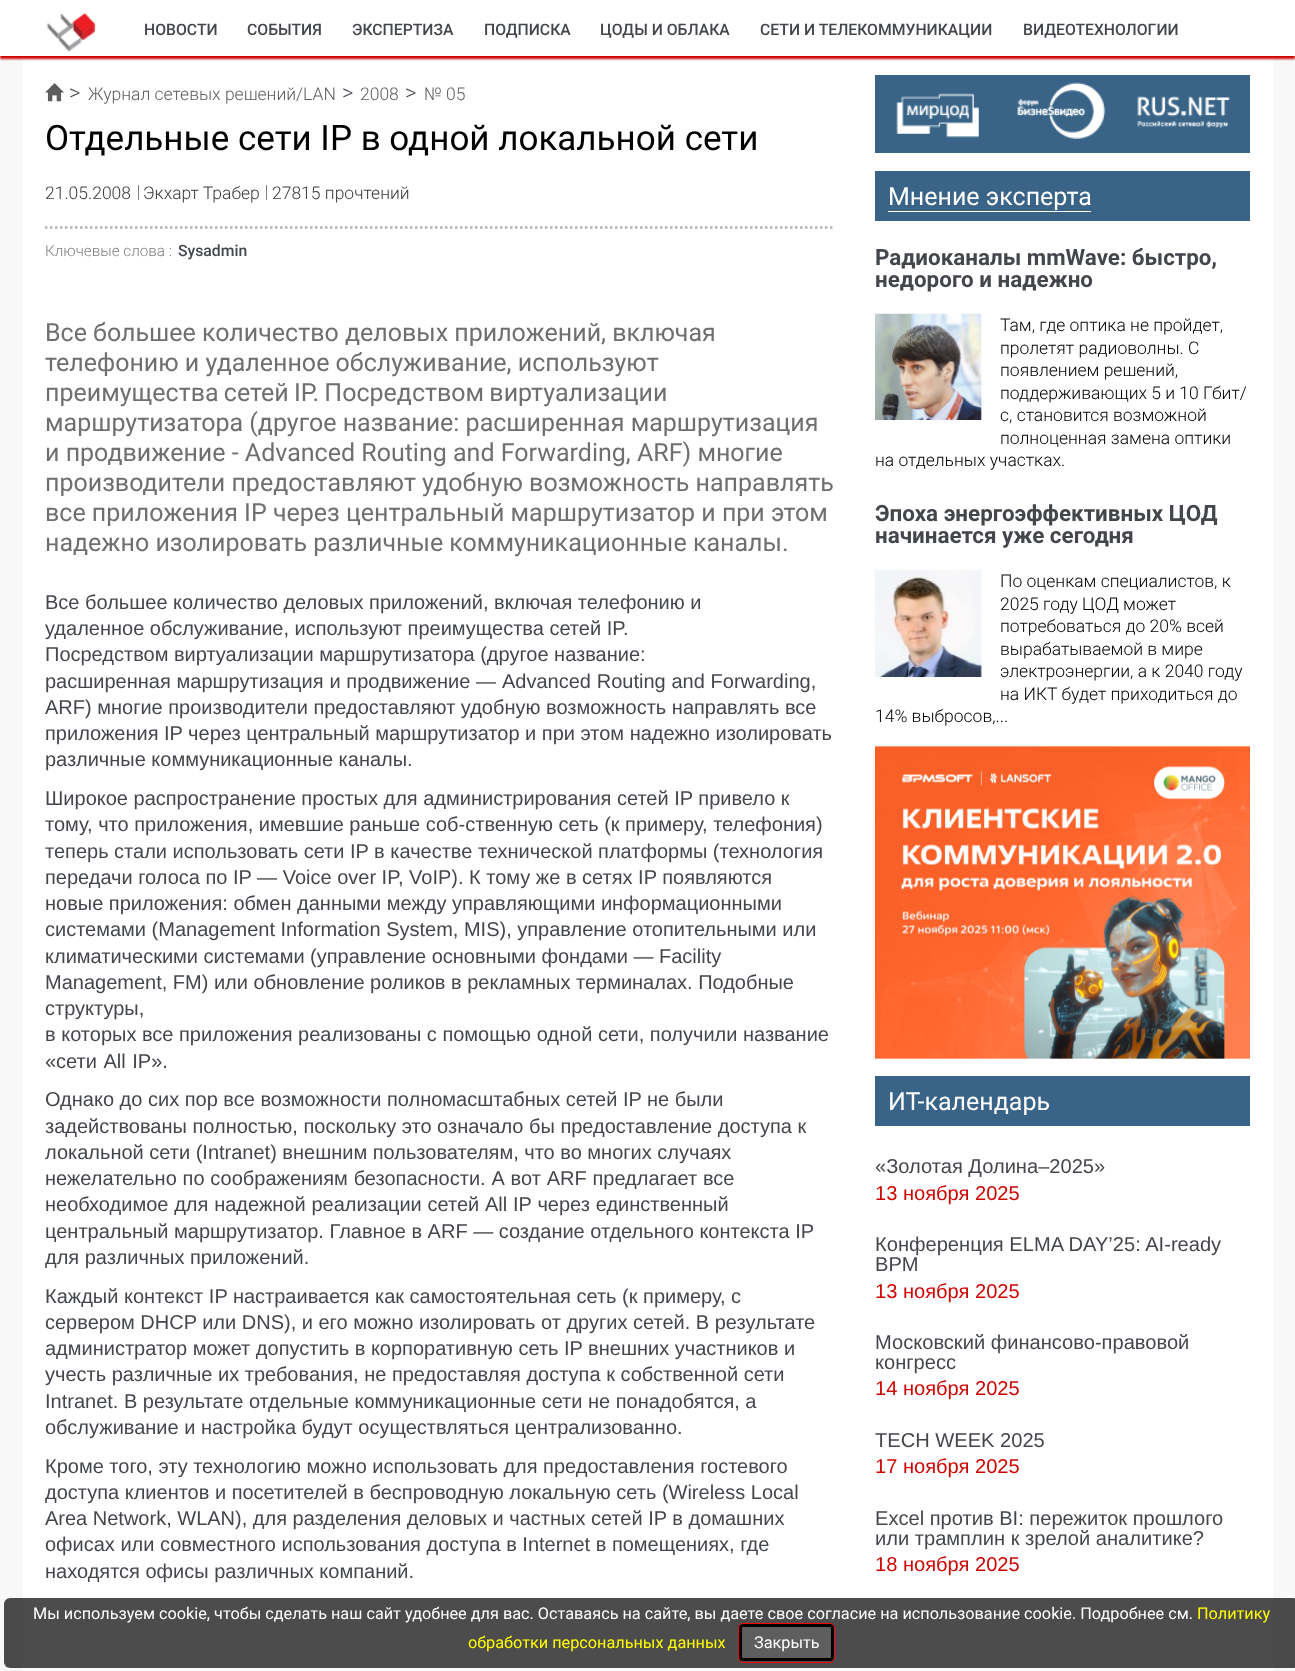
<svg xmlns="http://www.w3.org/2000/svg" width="1295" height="1671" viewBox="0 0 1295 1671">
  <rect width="100%" height="100%" fill="rgb(248,248,248)"/>
  <rect x="23" y="56" width="1250" height="1615" fill="rgb(255,255,255)"/>
  <rect x="0" y="3" width="1295" height="56" fill="rgb(205,4,0)" filter="blur(1px)"/>
  <rect x="0" y="0" width="1295" height="56" fill="rgb(255,255,255)"/>
  <image x="47" y="12" width="49" height="40" href="pic1.png"/>
  <g font-family="Roboto" font-size="15.75" font-weight="500" fill="rgb(67,70,75)">
    <text x="144" y="35">НОВОСТИ</text>
    <text x="247" y="35">СОБЫТИЯ</text>
    <text x="352" y="35">ЭКСПЕРТИЗА</text>
    <text x="484" y="35">ПОДПИСКА</text>
    <text x="600" y="35">ЦОДЫ И ОБЛАКА</text>
    <text x="760" y="35">СЕТИ И ТЕЛЕКОММУНИКАЦИИ</text>
    <text x="1023" y="35">ВИДЕОТЕХНОЛОГИИ</text>
  </g>
  <image x="45" y="83" width="19" height="19" href="pic2.png"/>
  <text x="69" y="100" font-family="Roboto" font-size="22" font-weight="300" fill="rgb(67,70,75)">&gt;</text>
  <text x="88" y="100" font-family="Roboto" font-size="17.5" font-weight="300" fill="rgb(93,93,94)">Журнал сетевых решений/LAN</text>
  <text x="342" y="100" font-family="Roboto" font-size="22" font-weight="300" fill="rgb(67,70,75)">&gt;</text>
  <text x="360" y="100" font-family="Roboto" font-size="17.5" font-weight="300" fill="rgb(93,93,94)">2008</text>
  <text x="405" y="100" font-family="Roboto" font-size="22" font-weight="300" fill="rgb(67,70,75)">&gt;</text>
  <text x="424" y="100" font-family="Roboto" font-size="17.5" font-weight="300" fill="rgb(93,93,94)">№ 05</text>
  <text x="45" y="150" font-family="Roboto" font-size="35" fill="rgb(0,0,0)">Отдельные сети IP в одной локальной сети</text>
  <rect x="138" y="185" width="1" height="15" fill="rgb(128,128,128)"/>
  <text x="45" y="199" font-family="Roboto" font-size="17.5" font-weight="300" fill="rgb(59,59,59)">21.05.2008</text>
  <rect x="266" y="185" width="1" height="15" fill="rgb(128,128,128)"/>
  <g font-family="Roboto" font-size="17.5" font-weight="300" fill="rgb(59,59,59)">
    <text x="143" y="199">Экхарт Трабер</text>
    <text x="272" y="199">27815 прочтений</text>
  </g>
  <path d="M45 227.5H835" fill="none" stroke="rgb(179,179,179)" stroke-width="2.5" stroke-dasharray="2.5 2.5"/>
  <text x="45" y="256" font-family="Roboto" font-size="15.25" font-weight="300" fill="rgb(128,128,128)">Ключевые слова :</text>
  <text x="178" y="256" font-family="Roboto" font-size="15.75" font-weight="500" fill="rgb(67,70,75)">Sysadmin</text>
  <g font-family="Roboto" font-size="25" fill="rgb(111,111,111)">
    <text>
      <tspan x="45" y="341">Все большее количество деловых приложений, включая</tspan>
      <tspan x="45" y="371">телефонию и удаленное обслуживание, используют</tspan>
      <tspan x="45" y="401" word-spacing="-1">преимущества сетей IP. Посредством виртуализации</tspan>
      <tspan x="45" y="431">маршрутизатора (другое название: расширенная маршрутизация</tspan>
      <tspan x="45" y="461">и продвижение - Advanced Routing and Forwarding, ARF) многие</tspan>
      <tspan x="45" y="491">производители предоставляют удобную возможность направлять</tspan>
      <tspan x="45" y="521">все приложения IP через центральный маршрутизатор и при этом</tspan>
      <tspan x="45" y="551">надежно изолировать различные коммуникационные каналы.</tspan>
    </text>
  </g>
  <g font-family="Liberation Sans" font-size="20" fill="rgb(67,70,75)">
    <text>
      <tspan x="45" y="609">Все большее количество деловых приложений, включая телефонию и</tspan>
      <tspan x="45" y="635">удаленное обслуживание, используют преимущества сетей IP.</tspan>
      <tspan x="45" y="661">Посредством виртуализации маршрутизатора (другое название:</tspan>
      <tspan x="45" y="688" word-spacing="0.25">расширенная маршрутизация и продвижение — Advanced Routing and Forwarding,</tspan>
      <tspan x="45" y="714">ARF) многие производители предоставляют удобную возможность направлять все</tspan>
      <tspan x="45" y="740">приложения IP через центральный маршрутизатор и при этом надежно изолировать</tspan>
      <tspan x="45" y="766">различные коммуникационные каналы.</tspan>
      <tspan x="45" y="805">Широкое распространение простых для администрирования сетей IP привело к</tspan>
      <tspan x="45" y="831">тому, что приложения, имевшие раньше соб-ственную сеть (к примеру, телефония)</tspan>
      <tspan x="45" y="858">теперь стали использовать сети IP в качестве технической платформы (технология</tspan>
      <tspan x="45" y="884">передачи голоса по IP — Voice over IP, VoIP). К тому же в сетях IP появляются</tspan>
      <tspan x="45" y="910">новые приложения: обмен данными между управляющими информационными</tspan>
      <tspan x="45" y="936">системами (Management Information System, MIS), управление отопительными или</tspan>
      <tspan x="45" y="963">климатическими системами (управление основными фондами — Facility</tspan>
      <tspan x="45" y="989">Management, FM) или обновление роликов в рекламных терминалах. Подобные</tspan>
      <tspan x="45" y="1015">структуры,</tspan>
      <tspan x="45" y="1041">в которых все приложения реализованы с помощью одной сети, получили название</tspan>
      <tspan x="45" y="1068" word-spacing="1">«сети All IP».</tspan>
      <tspan x="45" y="1106">Однако до сих пор все возможности полномасштабных сетей IP не были</tspan>
      <tspan x="45" y="1133">задействованы полностью, поскольку это означало бы предоставление доступа к</tspan>
      <tspan x="45" y="1159">локальной сети (Intranet) внешним пользователям, что во многих случаях</tspan>
      <tspan x="45" y="1185" word-spacing="0.25">нежелательно по соображениям безопасности. А вот ARF предлагает все</tspan>
      <tspan x="45" y="1211" word-spacing="0.25">необходимое для надежной реализации сетей All IP через единственный</tspan>
      <tspan x="45" y="1238">центральный маршрутизатор. Главное в ARF — создание отдельного контекста IP</tspan>
      <tspan x="45" y="1264">для различных приложений.</tspan>
      <tspan x="45" y="1303">Каждый контекст IP настраивается как самостоятельная сеть (к примеру, с</tspan>
      <tspan x="45" y="1329">сервером DHCP или DNS), и его можно изолировать от других сетей. В результате</tspan>
      <tspan x="45" y="1355">администратор может допустить в корпоративную сеть IP внешних участников и</tspan>
      <tspan x="45" y="1381">учесть различные их требования, не предоставляя доступа к собственной сети</tspan>
      <tspan x="45" y="1408">Intranet. В результате отдельные коммуникационные сети не понадобятся, а</tspan>
      <tspan x="45" y="1434">обслуживание и настройка будут осуществляться централизованно.</tspan>
      <tspan x="45" y="1473">Кроме того, эту технологию можно использовать для предоставления гостевого</tspan>
      <tspan x="45" y="1499">доступа клиентов и посетителей в беспроводную локальную сеть (Wireless Local</tspan>
      <tspan x="45" y="1525">Area Network, WLAN), для разделения деловых и частных сетей IP в домашних</tspan>
      <tspan x="45" y="1551">офисах или совместного использования доступа в Internet в помещениях, где</tspan>
      <tspan x="45" y="1578">находятся офисы различных компаний.</tspan>
    </text>
  </g>
  <rect x="875" y="75" width="375" height="78" fill="rgb(57,100,135)"/>
  <image x="896" y="93" width="83" height="45" href="pic3.png"/>
  <image x="1017" y="82" width="89" height="57" href="pic4.png"/>
  <image x="1137" y="96" width="94" height="32" href="pic5.png"/>
  <rect x="875" y="171" width="375" height="50" fill="rgb(57,100,135)"/>
  <text x="888" y="205" font-family="Roboto" font-size="25" fill="rgb(255,255,255)">Мнение эксперта</text>
  <rect x="888" y="211" width="203" height="1" fill="rgb(255,255,255)"/>
  <g font-family="Roboto" font-size="22.4" font-weight="bold" fill="rgb(67,70,75)">
    <text>
      <tspan x="875" y="265">Радиоканалы mmWave: быстро,</tspan>
      <tspan x="875" y="287">недорого и надежно</tspan>
    </text>
  </g>
  <image x="875" y="313" width="107" height="107" href="pic6.png"/>
  <g font-family="Roboto" font-size="17.5" font-weight="300" fill="rgb(0,0,0)">
    <text>
      <tspan x="1000" y="331">Там, где оптика не пройдет,</tspan>
      <tspan x="1000" y="354">пролетят радиоволны. С</tspan>
      <tspan x="1000" y="376">появлением решений,</tspan>
      <tspan x="1000" y="399">поддерживающих 5 и 10 Гбит/</tspan>
      <tspan x="1000" y="421">с, становится возможной</tspan>
      <tspan x="1000" y="444">полноценная замена оптики</tspan>
    </text>
    <text x="875" y="466">на отдельных участках.</text>
  </g>
  <g font-family="Roboto" font-size="22.4" font-weight="bold" fill="rgb(67,70,75)">
    <text>
      <tspan x="875" y="521">Эпоха энергоэффективных ЦОД</tspan>
      <tspan x="875" y="543">начинается уже сегодня</tspan>
    </text>
  </g>
  <image x="875" y="570" width="107" height="107" href="pic7.png"/>
  <g font-family="Roboto" font-size="17.5" font-weight="300" fill="rgb(0,0,0)">
    <text>
      <tspan x="1000" y="587">По оценкам специалистов, к</tspan>
      <tspan x="1000" y="610">2025 году ЦОД может</tspan>
      <tspan x="1000" y="632">потребоваться до 20% всей</tspan>
      <tspan x="1000" y="655">вырабатываемой в мире</tspan>
      <tspan x="1000" y="677">электроэнергии, а к 2040 году</tspan>
      <tspan x="1000" y="700">на ИКТ будет приходиться до</tspan>
    </text>
    <text x="875" y="722">14% выбросов,...</text>
  </g>
  <image x="875" y="745" width="375" height="314" href="pic8.png"/>
  <rect x="875" y="1076" width="375" height="50" fill="rgb(57,100,135)"/>
  <text x="888" y="1110" font-family="Roboto" font-size="25" fill="rgb(255,255,255)">ИТ-календарь</text>
  <text x="875" y="1173" font-family="Liberation Sans" font-size="20.1" fill="rgb(67,70,75)">«Золотая Долина–2025»</text>
  <text x="875" y="1200" font-family="Liberation Sans" font-size="20.1" fill="rgb(205,4,0)">13 ноября 2025</text>
  <g font-family="Liberation Sans" font-size="20.1" fill="rgb(67,70,75)">
    <text>
      <tspan x="875" y="1251">Конференция ELMA DAY’25: AI-ready</tspan>
      <tspan x="875" y="1271">BPM</tspan>
    </text>
  </g>
  <text x="875" y="1298" font-family="Liberation Sans" font-size="20.1" fill="rgb(205,4,0)">13 ноября 2025</text>
  <g font-family="Liberation Sans" font-size="20.1" fill="rgb(67,70,75)">
    <text>
      <tspan x="875" y="1349">Московский финансово-правовой</tspan>
      <tspan x="875" y="1369">конгресс</tspan>
    </text>
  </g>
  <text x="875" y="1395" font-family="Liberation Sans" font-size="20.1" fill="rgb(205,4,0)">14 ноября 2025</text>
  <text x="875" y="1447" font-family="Liberation Sans" font-size="20.1" fill="rgb(67,70,75)">TECH WEEK 2025</text>
  <text x="875" y="1473" font-family="Liberation Sans" font-size="20.1" fill="rgb(205,4,0)">17 ноября 2025</text>
  <g font-family="Liberation Sans" font-size="20.1" fill="rgb(67,70,75)">
    <text>
      <tspan x="875" y="1525">Excel против BI: пережиток прошлого</tspan>
      <tspan x="875" y="1545">или трамплин к зрелой аналитике?</tspan>
    </text>
  </g>
  <text x="875" y="1571" font-family="Liberation Sans" font-size="20.1" fill="rgb(205,4,0)">18 ноября 2025</text>
  <rect x="875" y="1618" width="375" height="1" fill="rgb(230,230,230)"/>
  <rect x="4" y="1598" width="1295" height="70" rx="6" fill="rgba(0,0,0,0.7)"/>
  <text x="33" y="1619" font-family="Roboto" font-size="16.25" fill="rgb(255,255,255)">Мы используем cookie, чтобы сделать наш сайт удобнее для вас. Оставаясь на сайте, вы даете свое согласие на использование cookie. Подробнее см.</text>
  <g font-family="Roboto" font-size="16.25" fill="rgb(255,255,0)">
    <text x="1197" y="1619">Политику</text>
    <text x="468" y="1648">обработки персональных данных</text>
  </g>
  <rect x="740.5" y="1625.5" width="92" height="34" rx="2.5" fill="rgb(94,94,94)" stroke="rgb(0,0,0)" stroke-width="3"/>
  <rect x="738.5" y="1623.5" width="96" height="39" rx="4.5" fill="none" stroke="rgb(255,0,0)"/>
  <text x="754" y="1648" font-family="Roboto" font-size="16.25" fill="rgb(255,255,255)">Закрыть</text>
</svg>
